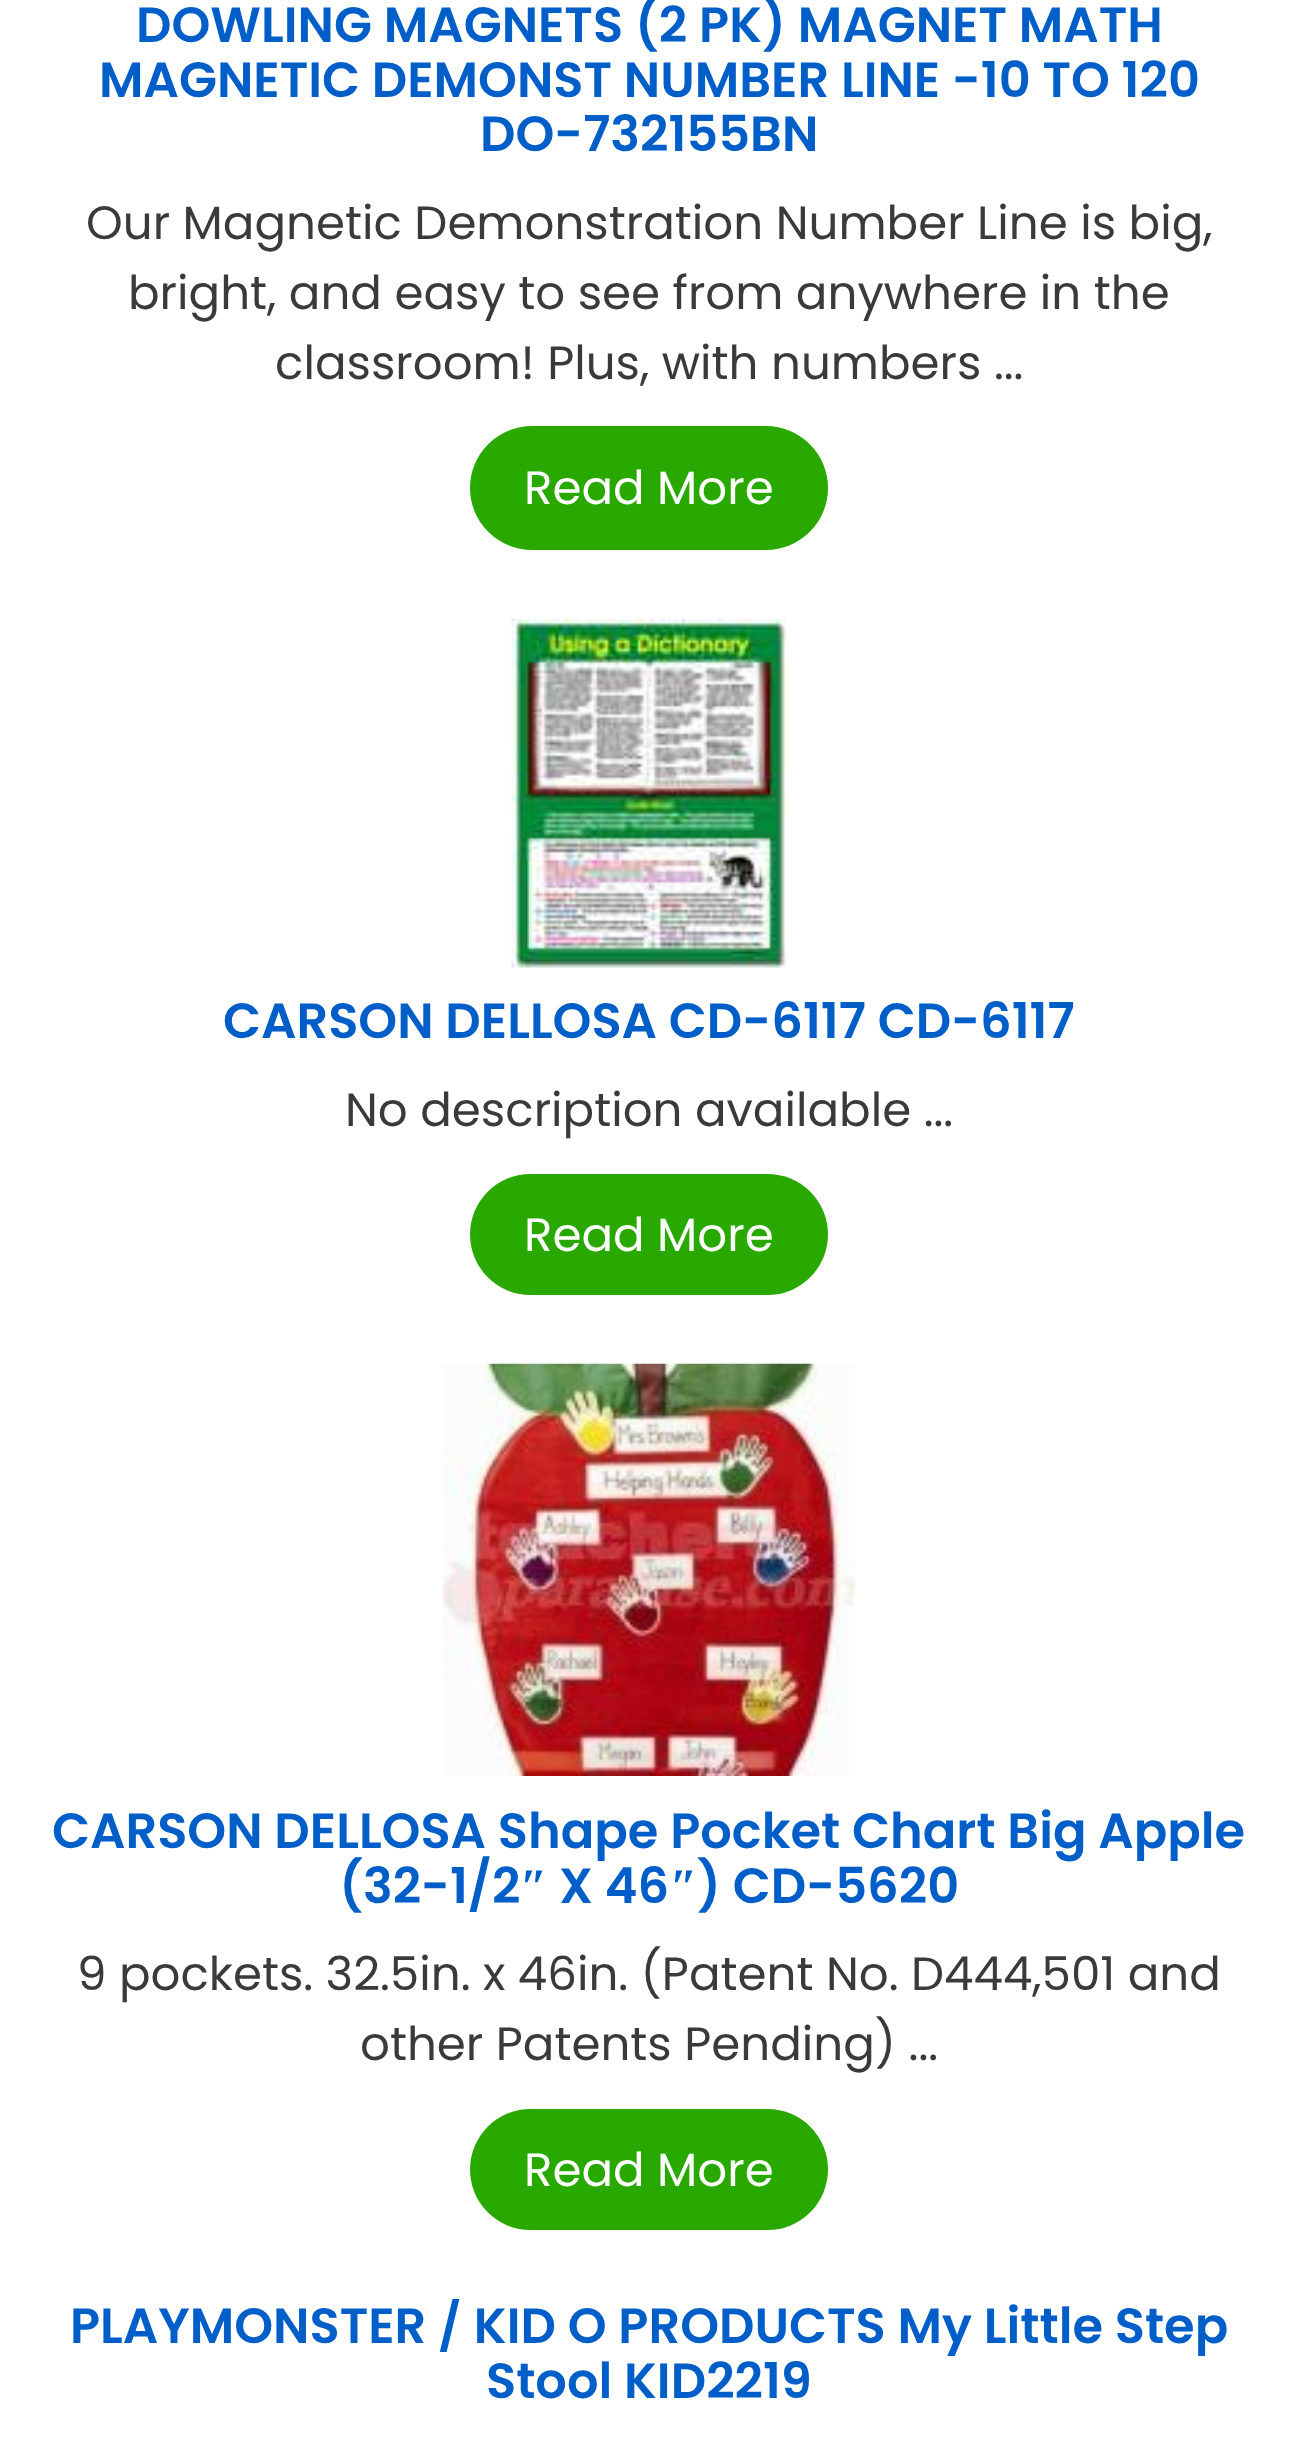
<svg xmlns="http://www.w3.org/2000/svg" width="1296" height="2460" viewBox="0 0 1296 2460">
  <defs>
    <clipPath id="clip1"><rect x="8" y="2299" width="1282" height="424"/></clipPath>
  </defs>
  <rect width="100%" height="100%" fill="rgb(255,255,255)"/>
  <g font-family="Poppins" font-size="49.5" font-weight="600" fill="rgb(0,94,200)">
    <text x="136" y="42">DOWLING MAGNETS (2 PK) MAGNET MATH</text>
    <text x="99" y="97">MAGNETIC DEMONST NUMBER LINE -10 TO 120</text>
    <text x="480" y="151">DO-732155BN</text>
  </g>
  <g font-family="Poppins" font-size="46.75" fill="rgb(58,58,58)">
    <text x="86" y="239">Our Magnetic Demonstration Number Line is big,</text>
    <text x="128" y="309">bright, and easy to see from anywhere in the</text>
    <text x="275" y="379">classroom! Plus, with numbers ...</text>
  </g>
  <rect x="470" y="426" width="358" height="124" rx="62" fill="rgb(41,169,0)"/>
  <text x="524" y="504" font-family="Poppins" font-size="46.75" fill="rgb(255,255,255)">Read More</text>
  <image x="511" y="618" width="276" height="350" href="pic1.png"/>
  <text x="223" y="1038" font-family="Poppins" font-size="49.5" font-weight="600" fill="rgb(0,94,200)">CARSON DELLOSA CD-6117 CD-6117</text>
  <text x="345" y="1126" font-family="Poppins" font-size="46.75" fill="rgb(58,58,58)">No description available ...</text>
  <rect x="470" y="1174" width="358" height="121" rx="60.5" fill="rgb(41,169,0)"/>
  <text x="524" y="1251" font-family="Poppins" font-size="46.75" fill="rgb(255,255,255)">Read More</text>
  <image x="442" y="1363" width="414" height="413" href="pic2.png"/>
  <g font-family="Poppins" font-size="49.5" font-weight="600" fill="rgb(0,94,200)">
    <text x="52" y="1848">CARSON DELLOSA Shape Pocket Chart Big Apple</text>
    <text x="339" y="1903">(32-1/2</text>
  </g>
  <text x="520" y="1903" font-family="Liberation Serif" font-size="49.5" font-weight="bold" fill="rgb(0,94,200)">″</text>
  <text x="559" y="1903" font-family="Poppins" font-size="49.5" font-weight="600" fill="rgb(0,94,200)">X 46</text>
  <text x="670" y="1903" font-family="Liberation Serif" font-size="49.5" font-weight="bold" fill="rgb(0,94,200)">″</text>
  <text x="697" y="1903" font-family="Poppins" font-size="49.5" font-weight="600" fill="rgb(0,94,200)">) CD-5620</text>
  <g font-family="Poppins" font-size="46.75" fill="rgb(58,58,58)">
    <text x="77" y="1990">9 pockets. 32.5in. x 46in. (Patent No. D444,501 and</text>
    <text x="360" y="2060">other Patents Pending) ...</text>
  </g>
  <rect x="470" y="2109" width="358" height="121" rx="60.5" fill="rgb(41,169,0)"/>
  <text x="524" y="2186" font-family="Poppins" font-size="46.75" fill="rgb(255,255,255)">Read More</text>
  <g clip-path="url(#clip1)">
    <text x="70" y="2343" font-family="Poppins" font-size="49.5" font-weight="600" fill="rgb(0,94,200)">PLAYMONSTER / KID O PRODUCTS My Little Step</text>
  </g>
  <text x="486" y="2398" font-family="Poppins" font-size="49.5" font-weight="600" fill="rgb(0,94,200)">Stool KID2219</text>
</svg>
